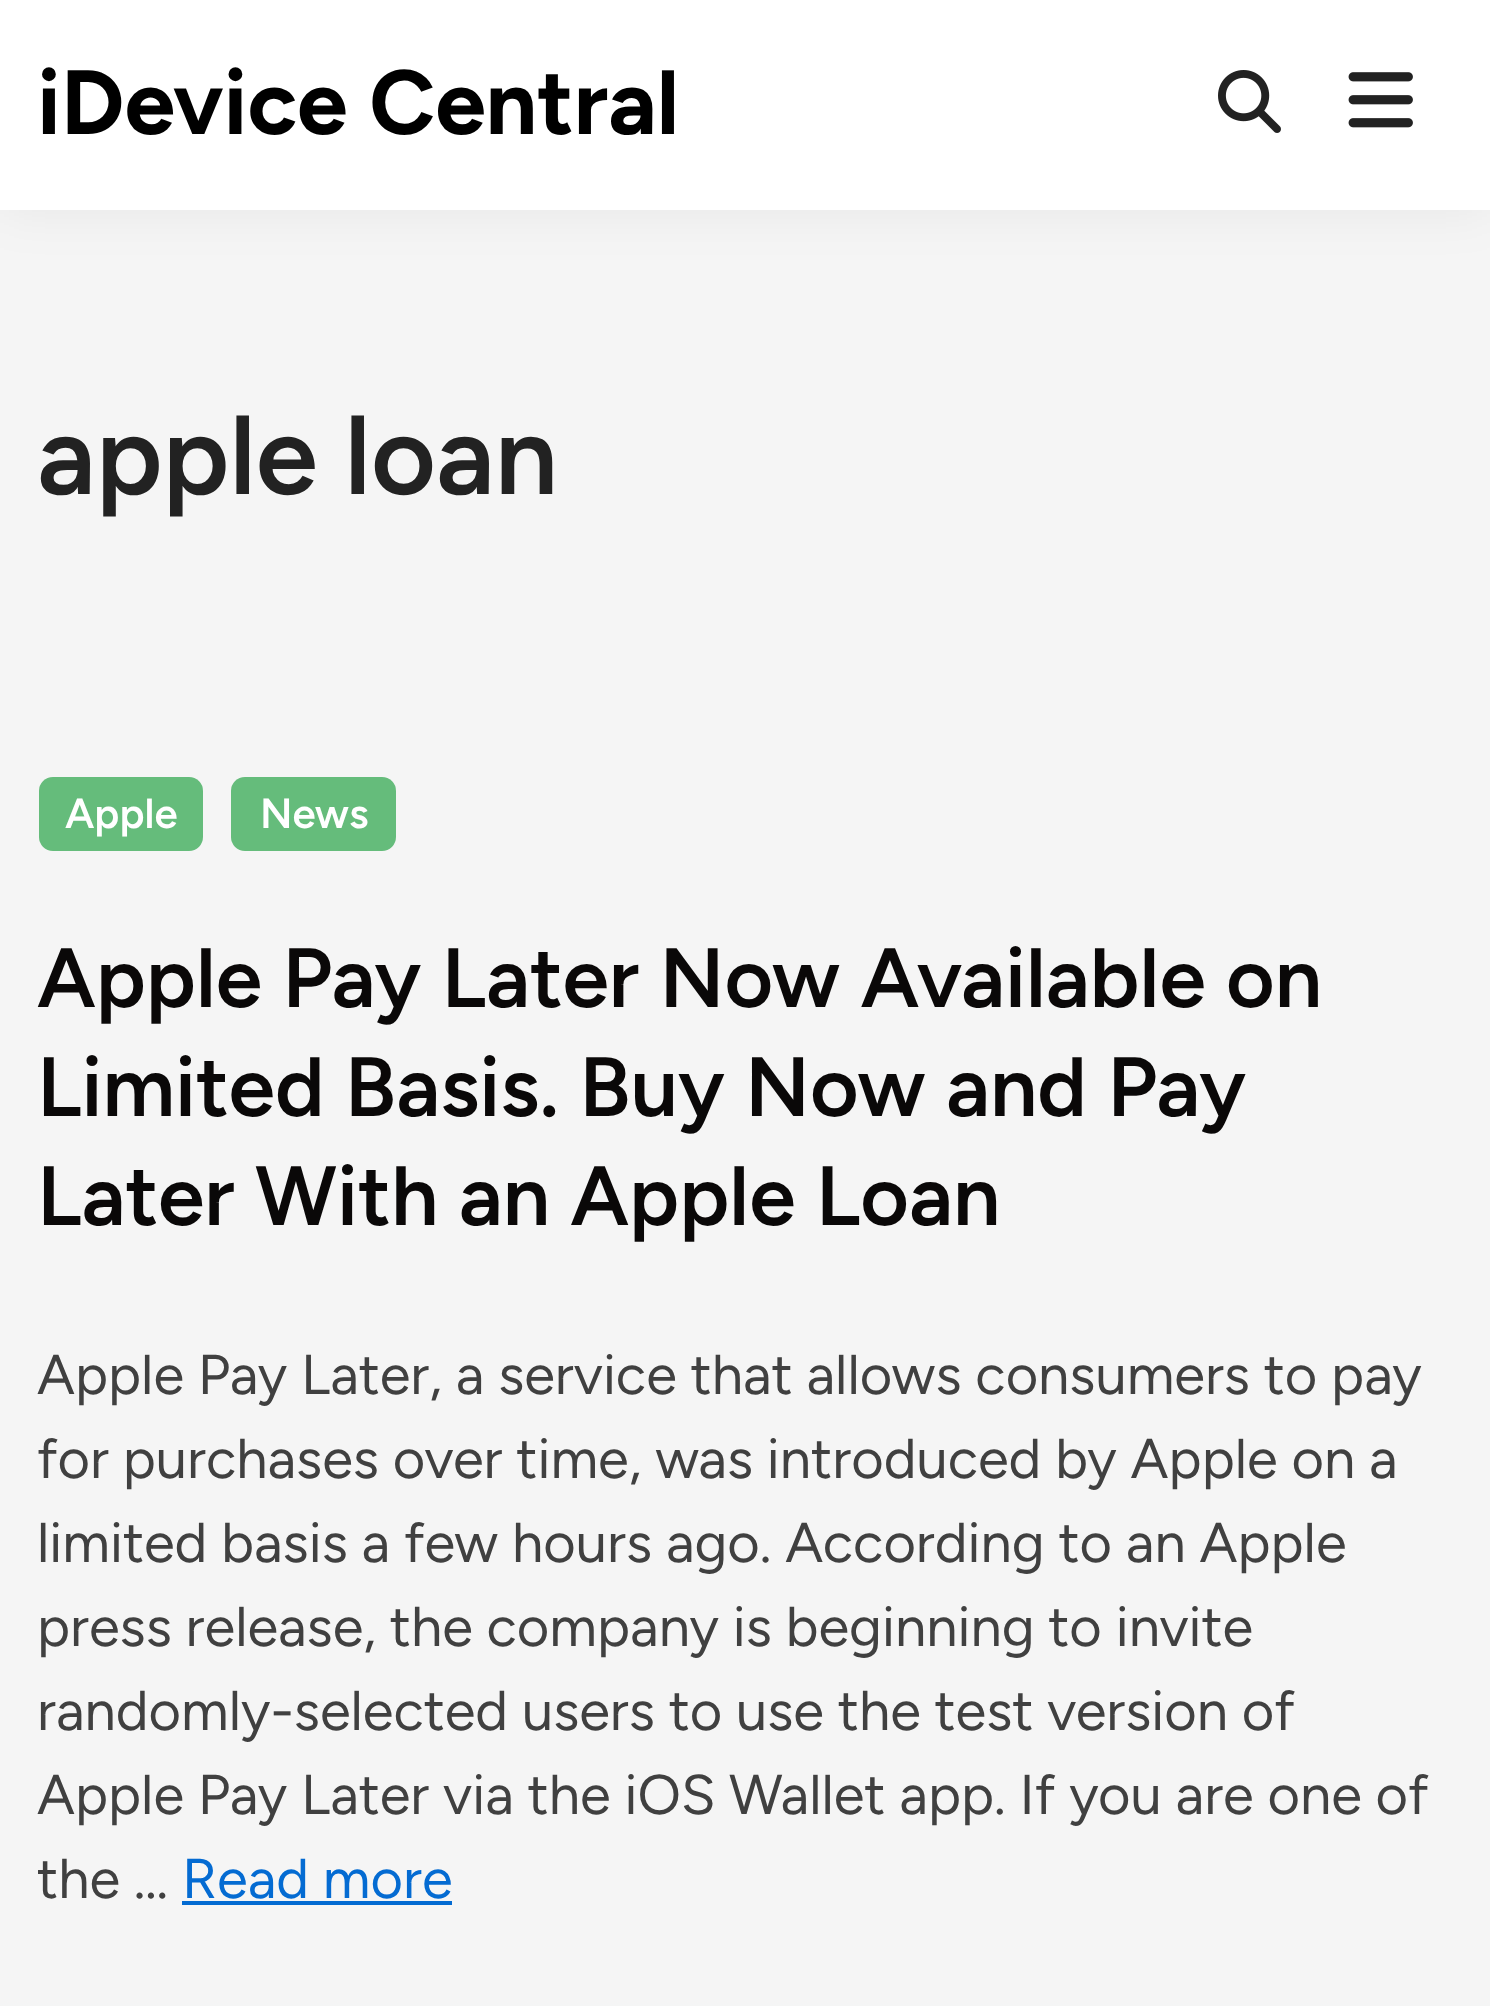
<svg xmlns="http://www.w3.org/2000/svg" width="1490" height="2006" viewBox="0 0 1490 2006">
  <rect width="100%" height="100%" fill="rgb(245,245,245)"/>
  <rect x="0" y="0" width="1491" height="210" fill="rgba(0,0,0,0.06)" filter="blur(26px)"/>
  <rect x="0" y="0" width="1490" height="210" fill="rgb(255,255,255)"/>
  <text x="37" y="134" font-family="Figtree" font-size="91" font-weight="bold" fill="rgb(0,0,0)">iDevice Central</text>
  <image x="1218" y="70" width="63" height="63" href="pic1.png"/>
  <image x="1348" y="72" width="65" height="56" href="pic2.png"/>
  <text x="37" y="494" font-family="Figtree" font-size="112" font-weight="600" fill="rgb(34,34,34)">apple loan</text>
  <rect x="39" y="777" width="164" height="74" rx="14" fill="rgb(101,188,123)"/>
  <text x="65" y="828" font-family="Figtree" font-size="42" font-weight="600" fill="rgb(255,255,255)">Apple</text>
  <rect x="231" y="777" width="165" height="74" rx="14" fill="rgb(101,188,123)"/>
  <text x="260" y="828" font-family="Figtree" font-size="42" font-weight="600" fill="rgb(255,255,255)">News</text>
  <g font-family="Figtree" font-size="84" font-weight="600" fill="rgb(10,8,8)">
    <text>
      <tspan x="37" y="1007">Apple Pay Later Now Available on</tspan>
      <tspan x="37" y="1116">Limited Basis. Buy Now and Pay</tspan>
      <tspan x="37" y="1225">Later With an Apple Loan</tspan>
    </text>
  </g>
  <g font-family="Figtree" font-size="56" fill="rgb(64,64,64)">
    <text>
      <tspan x="37" y="1394">Apple Pay Later, a service that allows consumers to pay</tspan>
      <tspan x="37" y="1478">for purchases over time, was introduced by Apple on a</tspan>
      <tspan x="37" y="1562">limited basis a few hours ago. According to an Apple</tspan>
      <tspan x="37" y="1646">press release, the company is beginning to invite</tspan>
      <tspan x="37" y="1730">randomly-selected users to use the test version of</tspan>
      <tspan x="37" y="1814">Apple Pay Later via the iOS Wallet app. If you are one of</tspan>
      <tspan x="37" y="1898">the …</tspan>
    </text>
  </g>
  <text x="182" y="1898" font-family="Figtree" font-size="56" fill="rgb(4,107,210)">Read more</text>
  <rect x="182" y="1901" width="270" height="4" fill="rgb(4,107,210)"/>
</svg>
